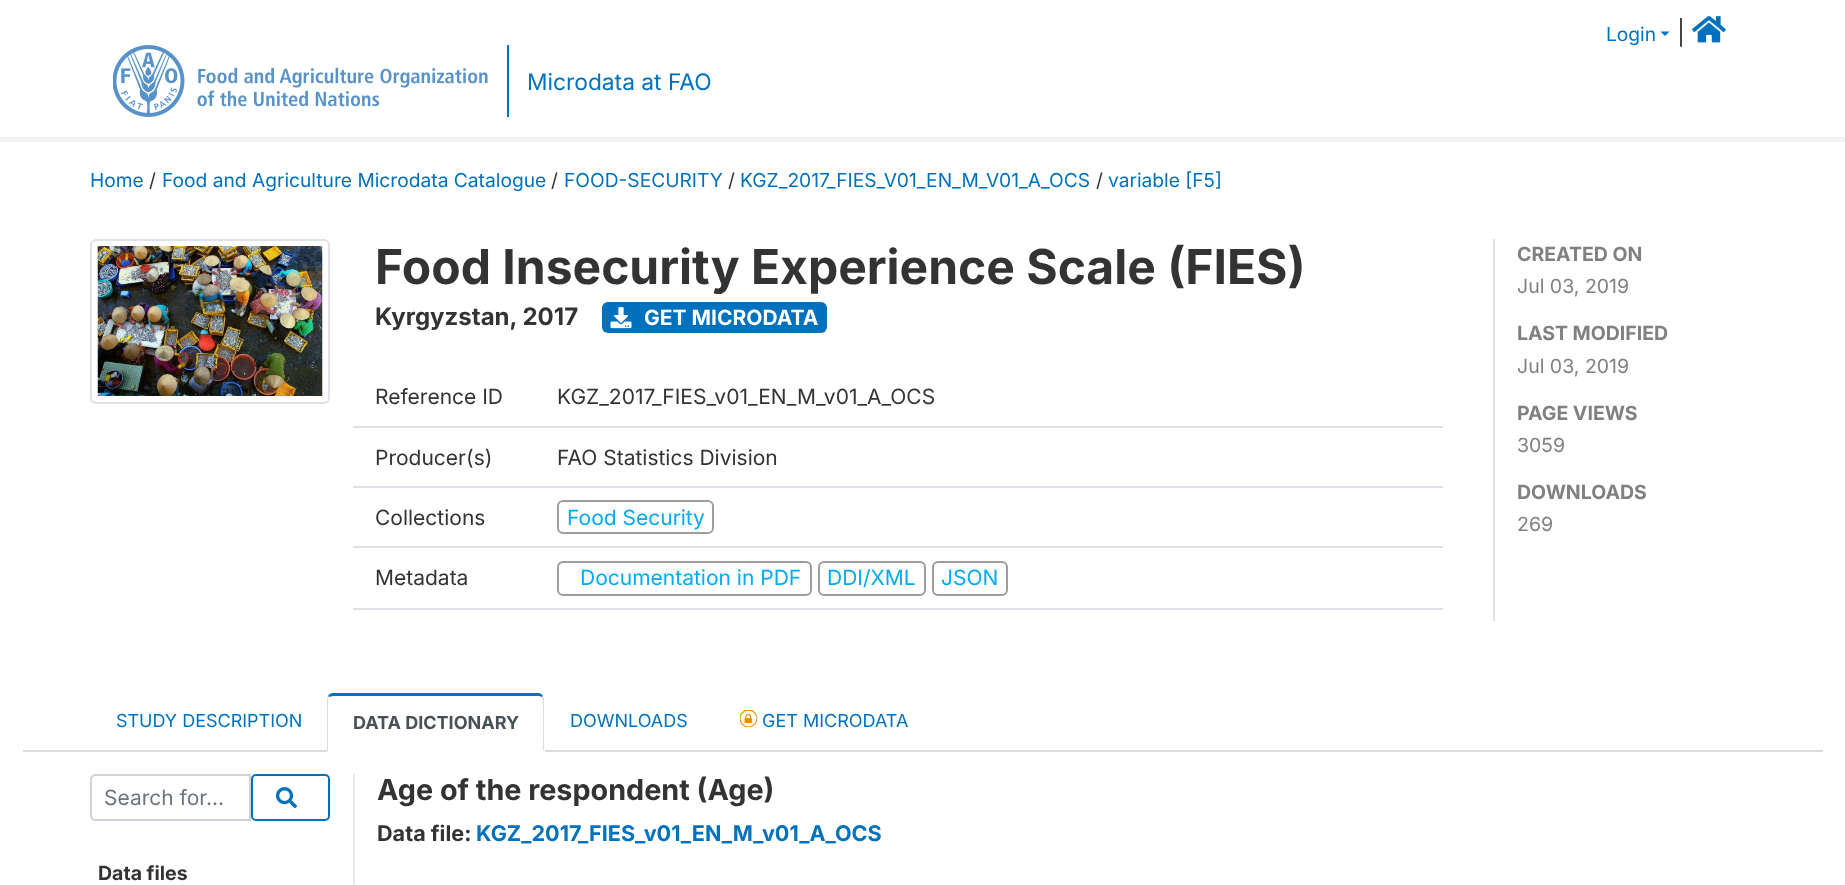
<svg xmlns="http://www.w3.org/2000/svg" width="1845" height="885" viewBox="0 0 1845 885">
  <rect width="100%" height="100%" fill="rgb(255,255,255)"/>
  <rect x="0" y="137" width="1845" height="5" fill="rgb(242,242,242)"/>
  <text x="1606" y="41" font-family="Inter" font-size="19.2" fill="rgb(0,113,189)">Login</text>
  <path d="M1660.5 31.5H1669.5L1665 36Z" fill="rgb(0,113,189)"/>
  <text x="1677" y="41" font-family="Inter" font-size="24" fill="rgb(51,51,51)">|</text>
  <image x="1692" y="16" width="34" height="27" href="pic1.png"/>
  <image x="113" y="45" width="375" height="72" href="pic2.png"/>
  <rect x="507" y="45" width="2" height="72" fill="rgb(0,113,189)"/>
  <text x="527" y="90" font-family="Inter" font-size="22.75" fill="rgb(0,113,189)">Microdata at FAO</text>
  <text x="90" y="187" font-family="Inter" font-size="19.2" fill="rgb(0,113,189)">Home</text>
  <text x="149" y="187" font-family="Inter" font-size="19.2" fill="rgb(51,51,51)">/</text>
  <text x="162" y="187" font-family="Inter" font-size="19.2" fill="rgb(0,113,189)">Food and Agriculture Microdata Catalogue</text>
  <text x="551" y="187" font-family="Inter" font-size="19.2" fill="rgb(51,51,51)">/</text>
  <text x="564" y="187" font-family="Inter" font-size="19.2" fill="rgb(0,113,189)">FOOD-SECURITY</text>
  <text x="728" y="187" font-family="Inter" font-size="19.2" fill="rgb(51,51,51)">/</text>
  <text x="740" y="187" font-family="Inter" font-size="19.2" fill="rgb(0,113,189)">KGZ_2017_FIES_V01_EN_M_V01_A_OCS</text>
  <text x="1096" y="187" font-family="Inter" font-size="19.2" fill="rgb(51,51,51)">/</text>
  <text x="1108" y="187" font-family="Inter" font-size="19.2" fill="rgb(0,113,189)">variable [F5]</text>
  <rect x="23" y="750" width="1800" height="2" fill="rgb(220,220,220)"/>
  <rect x="91" y="240" width="238" height="163" rx="5" fill="none" stroke="rgb(222,226,230)" stroke-width="2"/>
  <image x="97" y="246" width="226" height="150" href="pic3.png"/>
  <text x="375" y="284" font-family="Inter" font-size="48" font-weight="bold" fill="rgb(51,51,51)">Food Insecurity Experience Scale (FIES)</text>
  <text x="375" y="325" font-family="Inter" font-size="24" font-weight="bold" fill="rgb(51,51,51)">Kyrgyzstan, 2017</text>
  <rect x="602" y="302" width="225" height="31" rx="6" fill="rgb(0,113,189)"/>
  <image x="610" y="307" width="22" height="22" href="pic4.png"/>
  <text x="644" y="325" font-family="Inter" font-size="21" font-weight="bold" fill="rgb(255,255,255)">GET MICRODATA</text>
  <rect x="353" y="426" width="1090" height="2" fill="rgb(222,226,230)"/>
  <g font-family="Inter" font-size="21" fill="rgb(51,51,51)">
    <text x="375" y="404">Reference ID</text>
    <text x="557" y="404">KGZ_2017_FIES_v01_EN_M_v01_A_OCS</text>
  </g>
  <rect x="353" y="486" width="1090" height="2" fill="rgb(222,226,230)"/>
  <g font-family="Inter" font-size="21" fill="rgb(51,51,51)">
    <text x="375" y="465">Producer(s)</text>
    <text x="557" y="465">FAO Statistics Division</text>
  </g>
  <rect x="353" y="546" width="1090" height="2" fill="rgb(222,226,230)"/>
  <text x="375" y="525" font-family="Inter" font-size="21" fill="rgb(51,51,51)">Collections</text>
  <rect x="558" y="501" width="155" height="32" rx="5" fill="none" stroke="rgb(158,158,158)" stroke-width="2"/>
  <text x="567" y="525" font-family="Inter" font-size="21" fill="rgb(3,169,244)">Food Security</text>
  <rect x="353" y="608" width="1090" height="2" fill="rgb(222,226,230)"/>
  <text x="375" y="585" font-family="Inter" font-size="21" fill="rgb(51,51,51)">Metadata</text>
  <rect x="558" y="562" width="253" height="33" rx="5" fill="none" stroke="rgb(158,158,158)" stroke-width="2"/>
  <text x="580" y="585" font-family="Inter" font-size="21" fill="rgb(3,169,244)">Documentation in PDF</text>
  <rect x="819" y="562" width="106" height="33" rx="5" fill="none" stroke="rgb(158,158,158)" stroke-width="2"/>
  <text x="827" y="585" font-family="Inter" font-size="21" fill="rgb(3,169,244)">DDI/XML</text>
  <rect x="933" y="562" width="74" height="33" rx="5" fill="none" stroke="rgb(158,158,158)" stroke-width="2"/>
  <text x="941" y="585" font-family="Inter" font-size="21" fill="rgb(3,169,244)">JSON</text>
  <rect x="1493" y="239" width="2" height="382" fill="rgb(222,226,230)"/>
  <text x="1517" y="261" font-family="Inter" font-size="19.5" font-weight="bold" fill="rgb(128,128,128)">CREATED ON</text>
  <text x="1517" y="293" font-family="Inter" font-size="19.5" fill="rgb(128,128,128)">Jul 03, 2019</text>
  <text x="1517" y="340" font-family="Inter" font-size="19.5" font-weight="bold" fill="rgb(128,128,128)">LAST MODIFIED</text>
  <text x="1517" y="373" font-family="Inter" font-size="19.5" fill="rgb(128,128,128)">Jul 03, 2019</text>
  <text x="1517" y="420" font-family="Inter" font-size="19.5" font-weight="bold" fill="rgb(128,128,128)">PAGE VIEWS</text>
  <text x="1517" y="452" font-family="Inter" font-size="19.5" fill="rgb(128,128,128)">3059</text>
  <text x="1517" y="499" font-family="Inter" font-size="19.5" font-weight="bold" fill="rgb(128,128,128)">DOWNLOADS</text>
  <text x="1517" y="531" font-family="Inter" font-size="19.5" fill="rgb(128,128,128)">269</text>
  <text x="116" y="727" font-family="Inter" font-size="18" fill="rgb(0,113,189)">STUDY DESCRIPTION</text>
  <rect x="327" y="750" width="218" height="2" fill="rgb(255,255,255)"/>
  <path d="M333 693C331 693 329 694 328 696L329 697L333 696H539L542 697L543 696C542 694 540 693 538 693Z" fill="rgb(0,113,188)"/>
  <path d="M543 696L544 699V751L543 750C543 744 544 699 542 697Z" fill="rgb(220,220,220)"/>
  <path d="M544 752H327L328 750H543Z" fill="rgb(255,255,255)"/>
  <path d="M327 752L328 750V699L329 697L328 696L327 699Z" fill="rgb(220,220,220)"/>
  <text x="353" y="729" font-family="Inter" font-size="18" font-weight="bold" fill="rgb(73,80,87)">DATA DICTIONARY</text>
  <text x="570" y="727" font-family="Inter" font-size="18" fill="rgb(0,113,189)">DOWNLOADS</text>
  <image x="740" y="710" width="18" height="18" href="pic5.png"/>
  <text x="762" y="727" font-family="Inter" font-size="18" fill="rgb(0,113,189)">GET MICRODATA</text>
  <path d="M95 775H250V820H95C93 820 91 818 91 816V779C91 777 93 775 95 775Z" fill="none" stroke="rgb(206,212,218)" stroke-width="2"/>
  <text x="104" y="805" font-family="Inter" font-size="21" fill="rgb(108,117,125)">Search for...</text>
  <rect x="252" y="775" width="77" height="45" rx="4" fill="none" stroke="rgb(0,113,189)" stroke-width="2"/>
  <image x="276" y="787" width="21" height="22" href="pic6.png"/>
  <text x="98" y="880" font-family="Inter" font-size="19.5" font-weight="bold" fill="rgb(51,51,51)">Data files</text>
  <rect x="353" y="774" width="2" height="111" fill="rgb(232,232,232)"/>
  <text x="377" y="800" font-family="Inter" font-size="28.75" font-weight="bold" fill="rgb(51,51,51)">Age of the respondent (Age)</text>
  <text x="377" y="841" font-family="Inter" font-size="21.6" font-weight="bold" fill="rgb(51,51,51)">Data file:</text>
  <text x="476" y="841" font-family="Inter" font-size="21.6" font-weight="bold" fill="rgb(0,113,189)">KGZ_2017_FIES_v01_EN_M_v01_A_OCS</text>
</svg>
